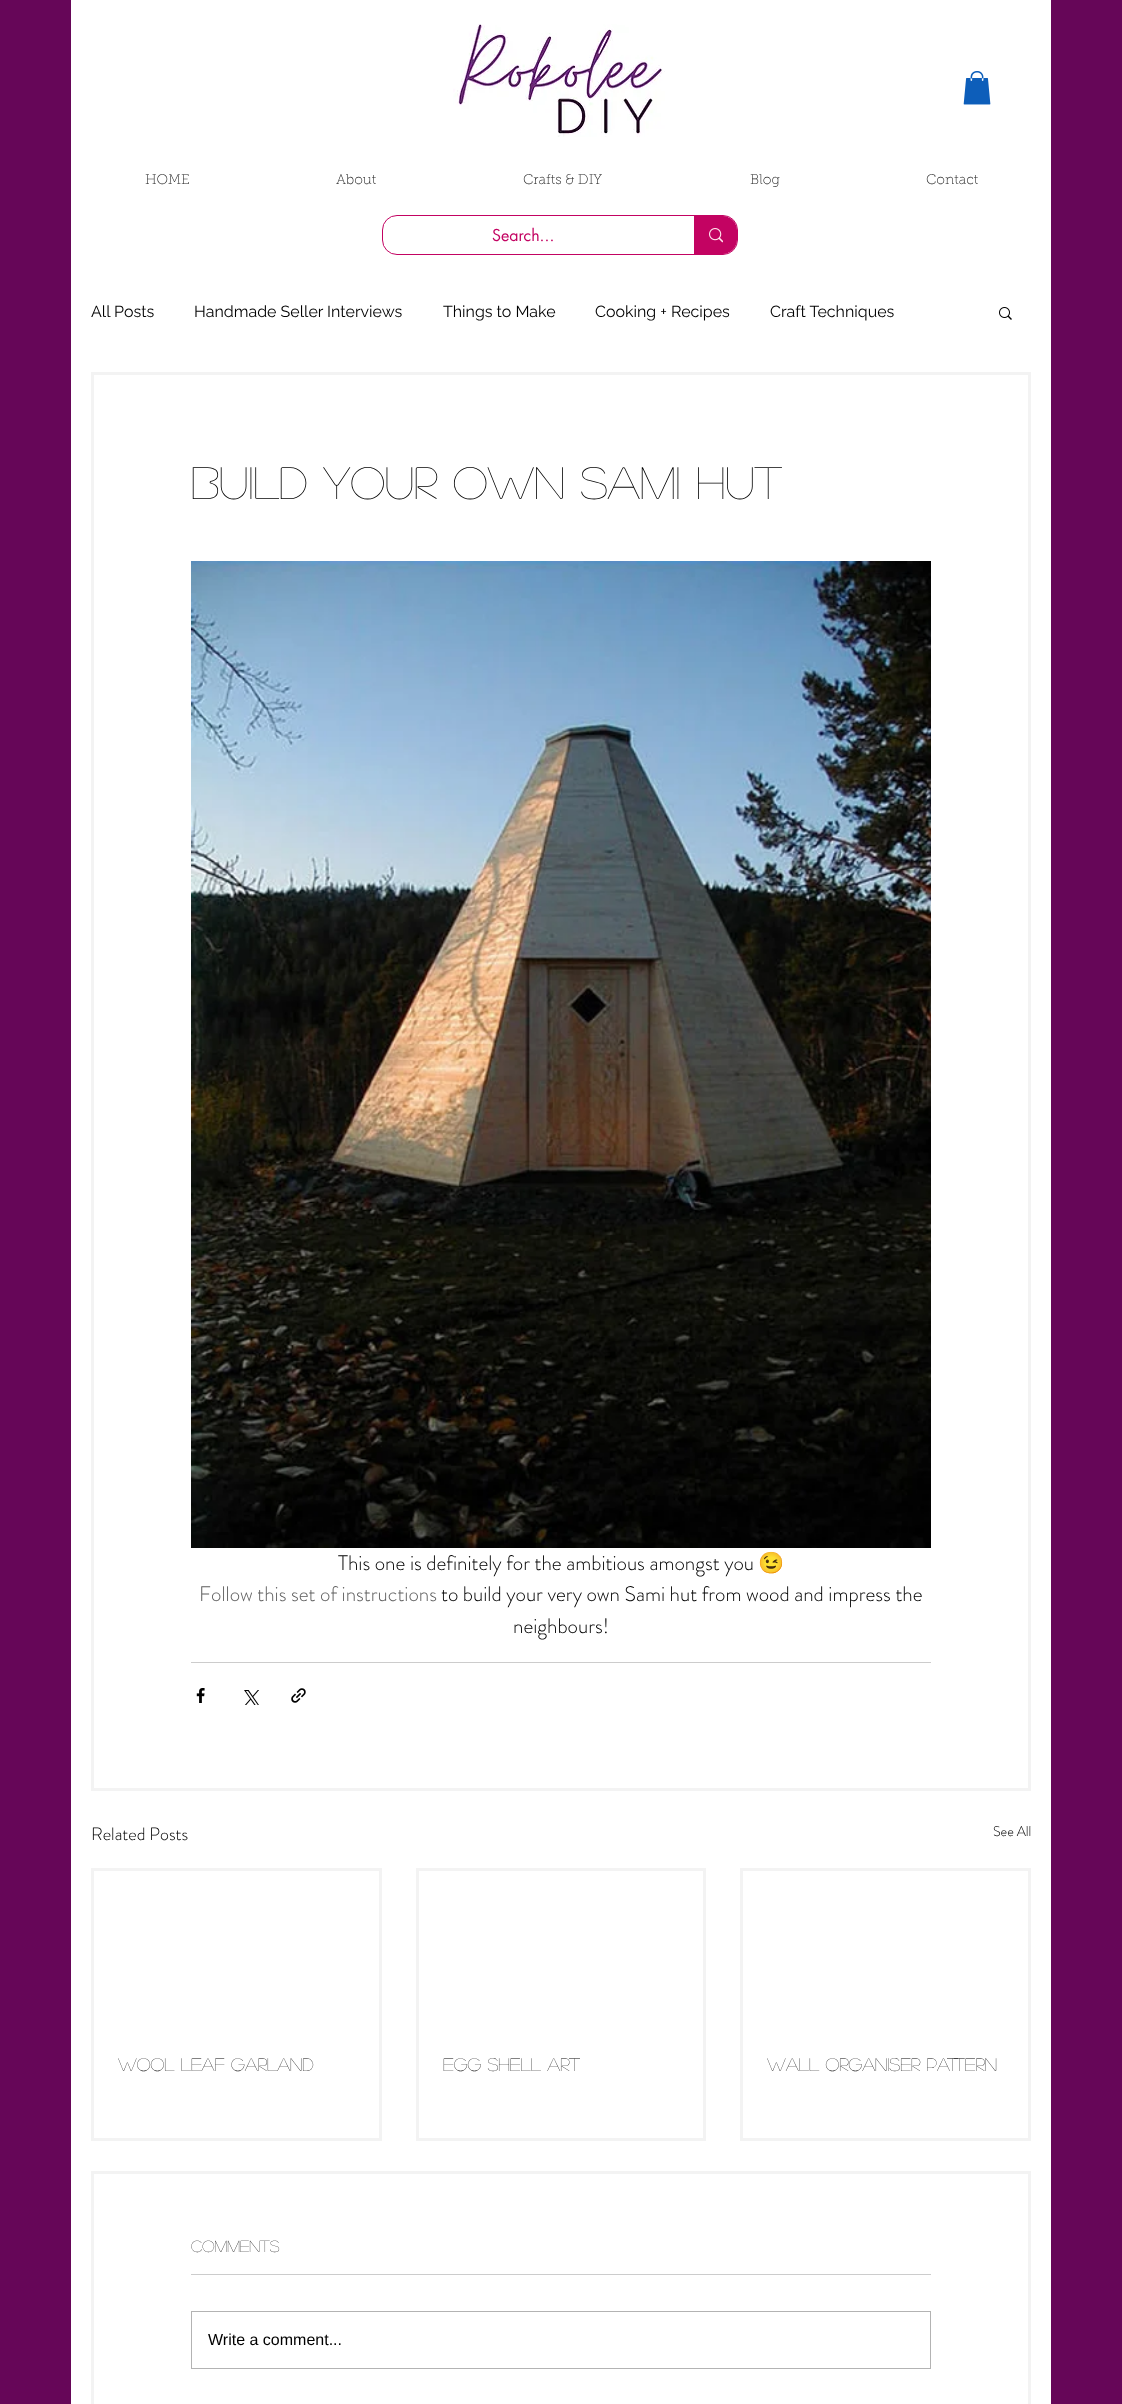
<svg xmlns="http://www.w3.org/2000/svg" width="1122" height="2404" viewBox="0 0 1122 2404">
  <rect width="100%" height="100%" fill="rgb(102,6,88)"/>
  <rect x="71" y="0" width="980" height="2404" fill="rgb(255,255,255)"/>
  <image x="453" y="24" width="212" height="113" href="pic1.png"/>
  <image x="963" y="71" width="28" height="34" href="pic2.png"/>
  <g font-family="'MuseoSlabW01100'" font-size="14" font-weight="100" fill="rgb(39,39,39)">
    <text x="145" y="184">HOME</text>
    <text x="336" y="184">About</text>
    <text x="523" y="184">Crafts &amp; DIY</text>
    <text x="750" y="184">Blog</text>
    <text x="926" y="184">Contact</text>
  </g>
  <rect x="382.5" y="215.5" width="355" height="39" rx="14.5" fill="none" stroke="rgb(195,3,98)"/>
  <text x="492" y="241" font-family="futura" font-size="16" fill="rgb(195,3,98)">Search...</text>
  <path d="M694 216H723C730.5 216 737 222.5 737 230V240C737 247.5 730.5 254 723 254H694Z" fill="rgb(195,3,98)"/>
  <image x="709" y="228" width="14" height="15" href="pic3.png"/>
  <g font-family="Raleway" font-size="16" fill="rgb(0,0,0)">
    <text x="91" y="317">All Posts</text>
    <text x="194" y="317">Handmade Seller Interviews</text>
    <text x="443" y="317">Things to Make</text>
    <text x="595" y="317">Cooking + Recipes</text>
    <text x="770" y="317">Craft Techniques</text>
  </g>
  <image x="999" y="307" width="13" height="13" href="pic4.png"/>
  <rect x="92.5" y="373.5" width="937" height="1416" fill="none" stroke="rgb(243,243,243)" stroke-width="3"/>
  <text x="191" y="499" font-family="'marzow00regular'" font-size="45" fill="rgb(0,0,0)">Build Your Own Sami Hut</text>
  <image x="191" y="561" width="740" height="987" href="pic5.png"/>
  <text x="338" y="1570" font-family="'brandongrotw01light'" font-size="21" font-weight="300" fill="rgb(0,0,0)">This one is definitely for the ambitious amongst you</text>
  <text x="758" y="1570" font-family="Noto Color Emoji" font-size="21" fill="rgb(0,0,0)">😉</text>
  <text x="199" y="1601" font-family="'brandongrotw01light'" font-size="21" font-weight="300" fill="rgb(96,96,96)">Follow this set of instructions</text>
  <g font-family="'brandongrotw01light'" font-size="21" font-weight="300" fill="rgb(0,0,0)">
    <text x="441" y="1601">to build your very own Sami hut from wood and impress the</text>
    <text x="513" y="1633">neighbours!</text>
  </g>
  <rect x="191" y="1662" width="740" height="1" fill="rgb(204,204,204)"/>
  <image x="196" y="1688" width="9" height="15" href="pic6.png"/>
  <image x="244" y="1690" width="15" height="15" href="pic7.png"/>
  <image x="291" y="1688" width="15" height="15" href="pic8.png"/>
  <text x="91" y="1840" font-family="'brandongrotw01light'" font-size="18" font-weight="300" fill="rgb(0,0,0)">Related Posts</text>
  <text x="993" y="1836" font-family="'brandongrotw01light'" font-size="14" font-weight="300" fill="rgb(0,0,0)">See All</text>
  <rect x="92.5" y="1869.5" width="288" height="270" fill="none" stroke="rgb(243,243,243)" stroke-width="3"/>
  <text x="118" y="2071" font-family="'marzow00regular'" font-size="18" fill="rgb(0,0,0)">Wool Leaf Garland</text>
  <rect x="417.5" y="1869.5" width="287" height="270" fill="none" stroke="rgb(243,243,243)" stroke-width="3"/>
  <text x="443" y="2071" font-family="'marzow00regular'" font-size="18" fill="rgb(0,0,0)">Egg Shell Art</text>
  <rect x="741.5" y="1869.5" width="288" height="270" fill="none" stroke="rgb(243,243,243)" stroke-width="3"/>
  <text x="767" y="2071" font-family="'marzow00regular'" font-size="18" fill="rgb(0,0,0)">Wall Organiser Pattern</text>
  <rect x="92.5" y="2172.5" width="937" height="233" fill="none" stroke="rgb(243,243,243)" stroke-width="3"/>
  <text x="191" y="2252" font-family="'marzow00regular'" font-size="16" fill="rgb(0,0,0)">Comments</text>
  <rect x="191" y="2274" width="740" height="1" fill="rgb(204,204,204)"/>
  <rect x="191.5" y="2311.5" width="739" height="57" fill="none" stroke="rgb(179,179,179)"/>
  <text x="208" y="2345" font-family="Liberation Sans" font-size="16" fill="rgb(0,0,0)">Write a comment...</text>
</svg>
